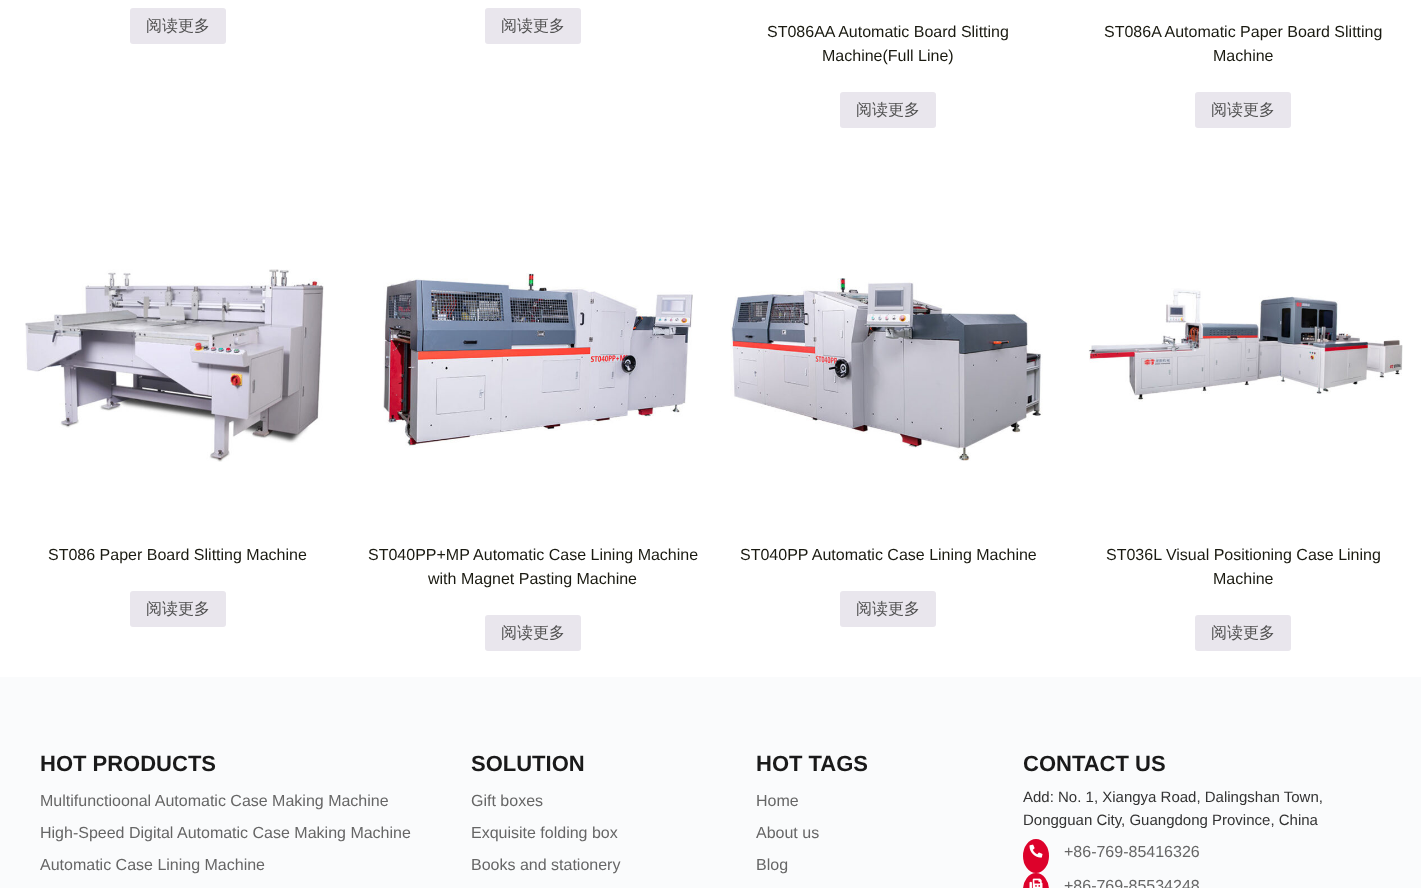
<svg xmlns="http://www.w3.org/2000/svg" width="1421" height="888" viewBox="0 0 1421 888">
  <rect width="100%" height="100%" fill="rgb(255,255,255)"/>
  <rect x="130" y="8" width="96" height="36" rx="3" fill="rgb(233,230,237)"/>
  <text x="146" y="31" font-family="WenQuanYi Zen Hei" font-size="16" font-weight="500" fill="rgb(81,81,81)">阅读更多</text>
  <rect x="485" y="8" width="96" height="36" rx="3" fill="rgb(233,230,237)"/>
  <text x="501" y="31" font-family="WenQuanYi Zen Hei" font-size="16" font-weight="500" fill="rgb(81,81,81)">阅读更多</text>
  <g font-family="Liberation Sans" font-size="16" fill="rgb(26,26,17)">
    <text x="767" y="37">ST086AA Automatic Board Slitting</text>
    <text x="822" y="61">Machine(Full Line)</text>
  </g>
  <rect x="840" y="92" width="96" height="36" rx="3" fill="rgb(233,230,237)"/>
  <text x="856" y="115" font-family="WenQuanYi Zen Hei" font-size="16" font-weight="500" fill="rgb(81,81,81)">阅读更多</text>
  <g font-family="Liberation Sans" font-size="16" fill="rgb(26,26,17)">
    <text x="1104" y="37">ST086A Automatic Paper Board Slitting</text>
    <text x="1213" y="61">Machine</text>
  </g>
  <rect x="1195" y="92" width="96" height="36" rx="3" fill="rgb(233,230,237)"/>
  <text x="1211" y="115" font-family="WenQuanYi Zen Hei" font-size="16" font-weight="500" fill="rgb(81,81,81)">阅读更多</text>
  <image x="25" y="269" width="299" height="193" href="pic1.png"/>
  <text x="48" y="560" font-family="Liberation Sans" font-size="16" fill="rgb(26,26,17)">ST086 Paper Board Slitting Machine</text>
  <rect x="130" y="591" width="96" height="36" rx="3" fill="rgb(233,230,237)"/>
  <text x="146" y="614" font-family="WenQuanYi Zen Hei" font-size="16" font-weight="500" fill="rgb(81,81,81)">阅读更多</text>
  <image x="383" y="273" width="310" height="175" href="pic2.png"/>
  <g font-family="Liberation Sans" font-size="16" fill="rgb(26,26,17)">
    <text x="368" y="560">ST040PP+MP Automatic Case Lining Machine</text>
    <text x="428" y="584">with Magnet Pasting Machine</text>
  </g>
  <rect x="485" y="615" width="96" height="36" rx="3" fill="rgb(233,230,237)"/>
  <text x="501" y="638" font-family="WenQuanYi Zen Hei" font-size="16" font-weight="500" fill="rgb(81,81,81)">阅读更多</text>
  <image x="730" y="278" width="313" height="183" href="pic3.png"/>
  <text x="740" y="560" font-family="Liberation Sans" font-size="16" fill="rgb(26,26,17)">ST040PP Automatic Case Lining Machine</text>
  <rect x="840" y="591" width="96" height="36" rx="3" fill="rgb(233,230,237)"/>
  <text x="856" y="614" font-family="WenQuanYi Zen Hei" font-size="16" font-weight="500" fill="rgb(81,81,81)">阅读更多</text>
  <image x="1088" y="288" width="315" height="114" href="pic4.png"/>
  <g font-family="Liberation Sans" font-size="16" fill="rgb(26,26,17)">
    <text x="1106" y="560">ST036L Visual Positioning Case Lining</text>
    <text x="1213" y="584">Machine</text>
  </g>
  <rect x="1195" y="615" width="96" height="36" rx="3" fill="rgb(233,230,237)"/>
  <text x="1211" y="638" font-family="WenQuanYi Zen Hei" font-size="16" font-weight="500" fill="rgb(81,81,81)">阅读更多</text>
  <rect x="0" y="677" width="1421" height="211" fill="rgb(250,251,252)"/>
  <text x="40" y="771" font-family="Liberation Sans" font-size="22" font-weight="bold" fill="rgb(26,26,26)">HOT PRODUCTS</text>
  <g font-family="Liberation Sans" font-size="16" fill="rgb(102,102,102)">
    <text x="40" y="806">Multifunctioonal Automatic Case Making Machine</text>
    <text x="40" y="838">High-Speed Digital Automatic Case Making Machine</text>
    <text x="40" y="870">Automatic Case Lining Machine</text>
  </g>
  <text x="471" y="771" font-family="Liberation Sans" font-size="22" font-weight="bold" fill="rgb(26,26,26)">SOLUTION</text>
  <g font-family="Liberation Sans" font-size="16" fill="rgb(102,102,102)">
    <text x="471" y="806">Gift boxes</text>
    <text x="471" y="838">Exquisite folding box</text>
    <text x="471" y="870">Books and stationery</text>
  </g>
  <text x="756" y="771" font-family="Liberation Sans" font-size="22" font-weight="bold" fill="rgb(26,26,26)">HOT TAGS</text>
  <g font-family="Liberation Sans" font-size="16" fill="rgb(102,102,102)">
    <text x="756" y="806">Home</text>
    <text x="756" y="838">About us</text>
    <text x="756" y="870">Blog</text>
  </g>
  <text x="1023" y="771" font-family="Liberation Sans" font-size="22" font-weight="bold" fill="rgb(26,26,26)">CONTACT US</text>
  <g font-family="Liberation Sans" font-size="15" fill="rgb(51,51,51)">
    <text>
      <tspan x="1023" y="802">Add: No. 1, Xiangya Road, Dalingshan Town,</tspan>
      <tspan x="1023" y="825">Dongguan City, Guangdong Province, China</tspan>
    </text>
  </g>
  <ellipse cx="1036" cy="856" rx="13" ry="17" fill="rgb(221,2,43)"/>
  <image x="1029" y="844" width="14" height="14" href="pic5.png"/>
  <text x="1064" y="857" font-family="Liberation Sans" font-size="16" fill="rgb(102,102,102)">+86-769-85416326</text>
  <ellipse cx="1036" cy="890" rx="13" ry="17" fill="rgb(221,2,43)"/>
  <image x="1029" y="878" width="14" height="10" href="pic6.png"/>
  <text x="1064" y="891" font-family="Liberation Sans" font-size="16" fill="rgb(102,102,102)">+86-769-85534248</text>
</svg>
